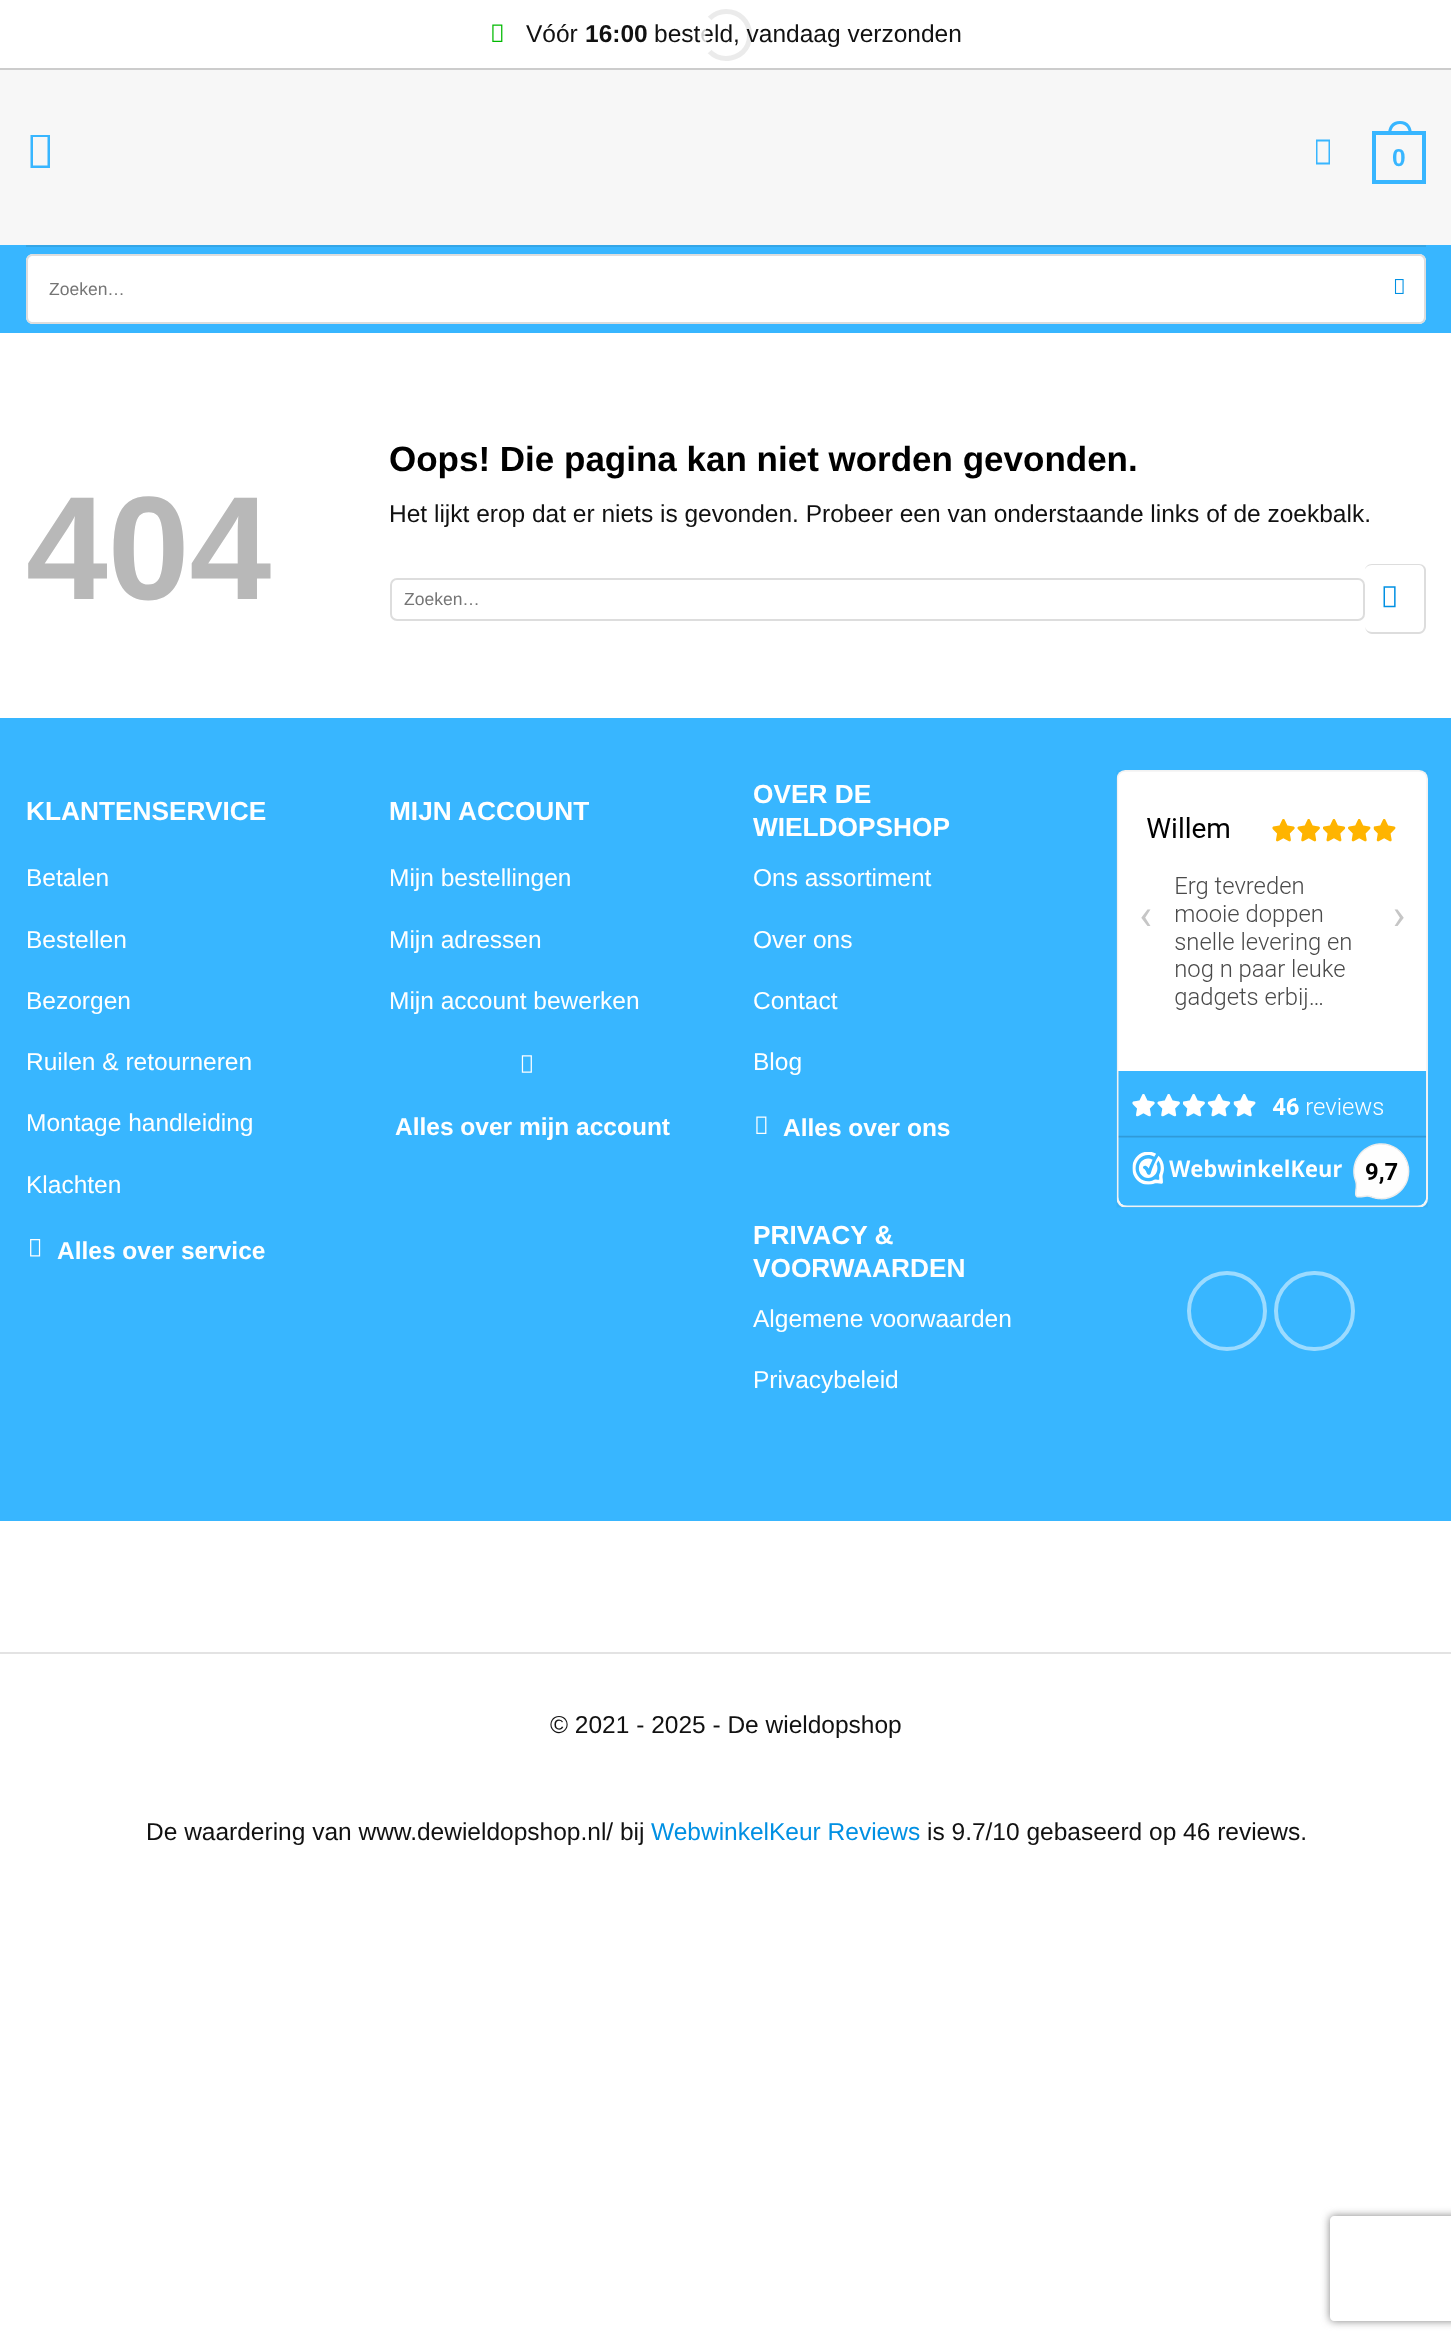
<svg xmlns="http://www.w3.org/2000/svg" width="1451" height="2345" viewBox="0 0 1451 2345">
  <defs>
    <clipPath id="clip1"><path d="M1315 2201H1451V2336H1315ZM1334 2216H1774C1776 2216 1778 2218 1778 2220V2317C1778 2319 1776 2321 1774 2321H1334C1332 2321 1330 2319 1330 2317V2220C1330 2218 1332 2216 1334 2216Z" clip-rule="evenodd"/></clipPath>
  </defs>
  <rect width="100%" height="100%" fill="rgb(255,255,255)"/>
  <rect x="0" y="68" width="1451" height="2" fill="rgb(204,204,204)"/>
  <path d="M709.5 18.5C714 14 720 11.5 726 11.5C754.5 11.5 758.5 52.5 731 58C723 59.5 715 57 709.5 51.5" fill="none" stroke="rgba(0,0,0,0.08)" stroke-width="5.2"/>
  <text x="654" y="42" font-family="Liberation Sans" font-size="24.5" fill="rgb(17,17,17)">besteld, vandaag verzonden</text>
  <path d="M709.5 51.5C700.5 42.5 700.5 27.5 709.5 18.5" fill="none" stroke="rgba(255,255,255,0.8)" stroke-width="5.2"/>
  <image x="492" y="24" width="11" height="18" href="pic1.png"/>
  <text x="526" y="42" font-family="Liberation Sans" font-size="24.5" fill="rgb(17,17,17)">Vóór</text>
  <text x="585" y="42" font-family="Liberation Sans" font-size="24.5" font-weight="bold" fill="rgb(17,17,17)">16:00</text>
  <rect x="0" y="70" width="1451" height="175" fill="rgb(247,247,247)"/>
  <path d="M30.5 168V135H50V168ZM33 165.5H47.5V137H33Z" fill="rgb(56,182,255)"/>
  <path d="M1316 164.5V139.5H1330V164.5ZM1317.5 162.5H1328.5V141.5H1317.5Z" fill="rgb(56,182,255)"/>
  <rect x="1374" y="133" width="50" height="49" fill="none" stroke="rgb(56,182,255)" stroke-width="4"/>
  <path d="M1400 121C1408.5 121 1412 127 1412 135H1388C1388 127 1391.5 121 1400 121ZM1400 124C1406.5 124 1409 129 1409 135H1391C1391 129 1393.5 124 1400 124Z" fill="rgb(56,182,255)" fill-rule="evenodd"/>
  <text x="1392" y="166" font-family="Liberation Sans" font-size="24.5" font-weight="bold" fill="rgb(56,182,255)">0</text>
  <rect x="0" y="245" width="1451" height="88" fill="rgb(56,182,255)"/>
  <rect x="26" y="245" width="1400" height="2" fill="rgb(52,166,231)"/>
  <path d="M33 254H1383V324H33C29 324 26 321 26 317V261C26 257 29 254 33 254Z" fill="rgb(255,255,255)"/>
  <path d="M33 254H1382V324H33C29 324 26 321 26 317V261C26 257 29 254 33 254ZM33 256H1382V322H33C30 322 28 320 28 317V261C28 258 30 256 33 256Z" fill="rgb(221,221,221)" fill-rule="evenodd"/>
  <text x="49" y="295" font-family="Liberation Sans" font-size="17.5" fill="rgb(117,117,117)">Zoeken…</text>
  <path d="M1383 254H1419C1423 254 1426 257 1426 261V317C1426 321 1423 324 1419 324H1383Z" fill="rgb(255,255,255)"/>
  <path d="M1382 254H1419C1423 254 1426 257 1426 261V317C1426 321 1423 324 1419 324H1382ZM1382 256H1419C1422 256 1424 258 1424 261V317C1424 320 1422 322 1419 322H1382Z" fill="rgb(221,221,221)" fill-rule="evenodd"/>
  <image x="1394" y="279" width="10" height="15" href="pic2.png"/>
  <text x="26" y="599" font-family="Liberation Sans" font-size="147" font-weight="bold" fill="rgb(184,184,184)">404</text>
  <text x="389" y="471" font-family="Liberation Sans" font-size="35" font-weight="bold" fill="rgb(0,0,0)">Oops! Die pagina kan niet worden gevonden.</text>
  <text x="389" y="522" font-family="Liberation Sans" font-size="24.5" fill="rgb(17,17,17)">Het lijkt erop dat er niets is gevonden. Probeer een van onderstaande links of de zoekbalk.</text>
  <rect x="391" y="579" width="973" height="41" rx="6" fill="none" stroke="rgb(221,221,221)" stroke-width="2"/>
  <text x="404" y="605" font-family="Liberation Sans" font-size="17.5" fill="rgb(117,117,117)">Zoeken…</text>
  <path d="M1372 564H1419C1423 564 1426 567 1426 570V626C1426 630 1423 634 1419 634H1372C1368 634 1365 630 1365 626V570C1365 567 1368 564 1372 564ZM1372 565H1419C1422 565 1424 568 1424 570V626C1424 629 1422 632 1419 632H1372C1368 632 1365 629 1365 626V570C1365 568 1368 565 1372 565Z" fill="rgb(221,221,221)" fill-rule="evenodd"/>
  <image x="1383" y="586" width="13" height="22" href="pic3.png"/>
  <rect x="0" y="718" width="1451" height="803" fill="rgb(56,182,255)"/>
  <text x="26" y="820" font-family="Liberation Sans" font-size="26.25" font-weight="bold" fill="rgb(255,255,255)">KLANTENSERVICE</text>
  <g font-family="Liberation Sans" font-size="24.5" fill="rgb(255,255,255)">
    <text x="26" y="886">Betalen</text>
    <text x="26" y="948">Bestellen</text>
    <text x="26" y="1009">Bezorgen</text>
    <text x="26" y="1070">Ruilen &amp; retourneren</text>
    <text x="26" y="1131">Montage handleiding</text>
    <text x="26" y="1193">Klachten</text>
  </g>
  <image x="30" y="1239" width="11" height="18" href="pic4.png"/>
  <text x="57" y="1259" font-family="Liberation Sans" font-size="24.5" font-weight="bold" fill="rgb(255,255,255)">Alles over service</text>
  <text x="389" y="820" font-family="Liberation Sans" font-size="26.25" font-weight="bold" fill="rgb(255,255,255)">MIJN ACCOUNT</text>
  <g font-family="Liberation Sans" font-size="24.5" fill="rgb(255,255,255)">
    <text x="389" y="886">Mijn bestellingen</text>
    <text x="389" y="948">Mijn adressen</text>
    <text x="389" y="1009">Mijn account bewerken</text>
  </g>
  <image x="521" y="1055" width="11" height="18" href="pic5.png"/>
  <text x="395" y="1135" font-family="Liberation Sans" font-size="24.5" font-weight="bold" fill="rgb(255,255,255)">Alles over mijn account</text>
  <g font-family="Liberation Sans" font-size="26.25" font-weight="bold" fill="rgb(255,255,255)">
    <text>
      <tspan x="753" y="803">OVER DE</tspan>
      <tspan x="753" y="836">WIELDOPSHOP</tspan>
    </text>
  </g>
  <g font-family="Liberation Sans" font-size="24.5" fill="rgb(255,255,255)">
    <text x="753" y="886">Ons assortiment</text>
    <text x="753" y="948">Over ons</text>
    <text x="753" y="1009">Contact</text>
    <text x="753" y="1070">Blog</text>
  </g>
  <image x="756" y="1116" width="11" height="18" href="pic6.png"/>
  <text x="783" y="1136" font-family="Liberation Sans" font-size="24.5" font-weight="bold" fill="rgb(255,255,255)">Alles over ons</text>
  <g font-family="Liberation Sans" font-size="26.25" font-weight="bold" fill="rgb(255,255,255)">
    <text>
      <tspan x="753" y="1244">PRIVACY &amp;</tspan>
      <tspan x="753" y="1277">VOORWAARDEN</tspan>
    </text>
  </g>
  <g font-family="Liberation Sans" font-size="24.5" fill="rgb(255,255,255)">
    <text x="753" y="1327">Algemene voorwaarden</text>
    <text x="753" y="1388">Privacybeleid</text>
  </g>
  <image x="1116" y="770" width="312" height="438" href="pic7.png"/>
  <circle cx="1227" cy="1311" r="38" fill="none" stroke="rgb(156,219,255)" stroke-width="4"/>
  <rect x="1276" y="1273" width="77" height="76" rx="38" fill="none" stroke="rgb(156,219,255)" stroke-width="4"/>
  <rect x="0" y="1652" width="1451" height="2" fill="rgb(227,227,227)"/>
  <g font-family="Liberation Sans" font-size="24.5" fill="rgb(17,17,17)">
    <text x="550" y="1733">© 2021 - 2025 - De wieldopshop</text>
    <text x="146" y="1840">De waardering van www.dewieldopshop.nl/ bij</text>
  </g>
  <text x="651" y="1840" font-family="Liberation Sans" font-size="24.5" fill="rgb(0,144,227)">WebwinkelKeur Reviews</text>
  <text x="927" y="1840" font-family="Liberation Sans" font-size="24.5" fill="rgb(17,17,17)">is 9.7/10 gebaseerd op 46 reviews.</text>
  <g clip-path="url(#clip1)">
    <rect x="1330" y="2216" width="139" height="105" rx="4" fill="rgb(128,128,128)" filter="blur(4.5px)"/>
  </g>
</svg>
